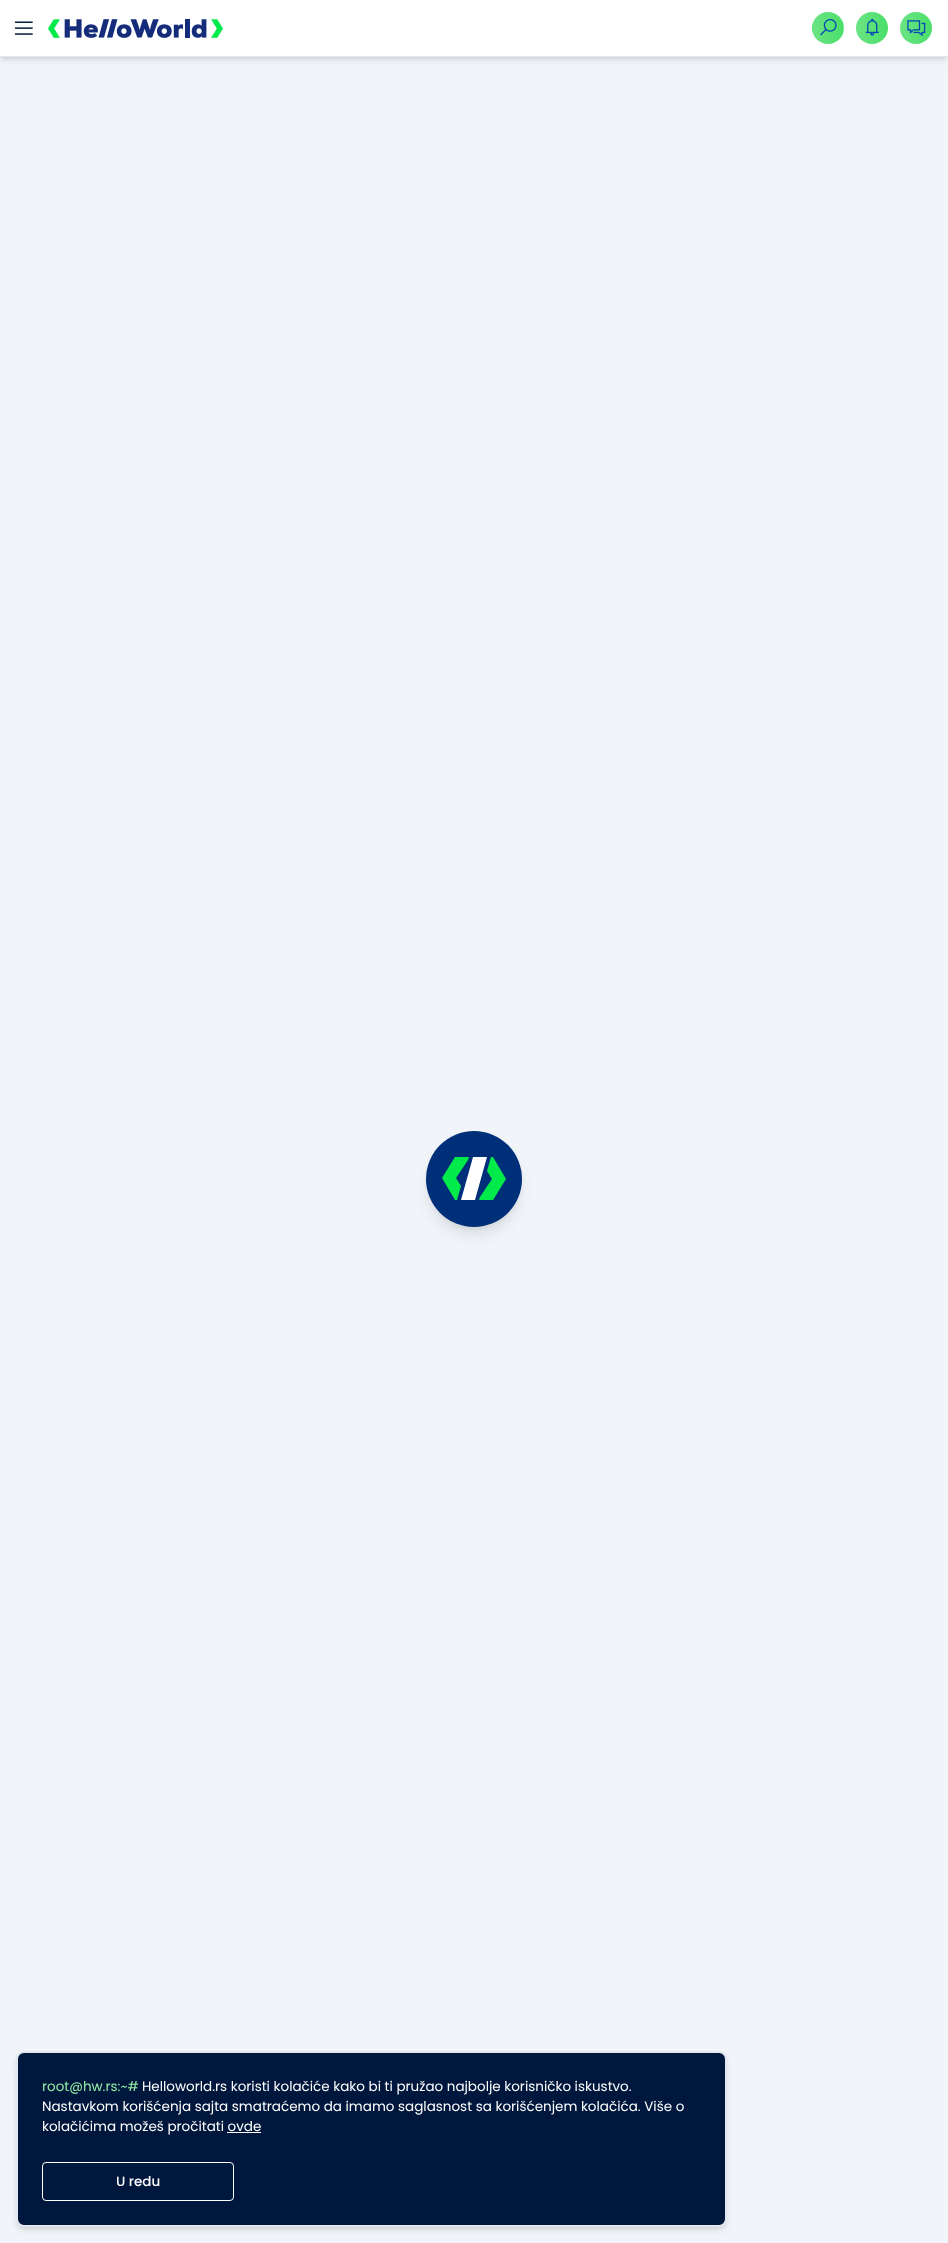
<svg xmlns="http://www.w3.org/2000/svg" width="948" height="2243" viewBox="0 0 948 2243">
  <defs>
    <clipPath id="clip1"><rect x="812" y="12" width="32" height="32" rx="16"/></clipPath>
    <linearGradient id="g1" gradientUnits="userSpaceOnUse" x1="783" y1="28" x2="813" y2="28"><stop offset="0" stop-color="rgb(108,228,132)"/><stop offset="1" stop-color="rgb(74,222,104)"/></linearGradient>
    <linearGradient id="g2" gradientUnits="userSpaceOnUse" x1="813" y1="28" x2="843" y2="28"><stop offset="0" stop-color="rgb(108,228,132)"/><stop offset="1" stop-color="rgb(74,222,104)"/></linearGradient>
    <linearGradient id="g3" gradientUnits="userSpaceOnUse" x1="843" y1="28" x2="873" y2="28"><stop offset="0" stop-color="rgb(108,228,132)"/><stop offset="1" stop-color="rgb(74,222,104)"/></linearGradient>
    <linearGradient id="g4" gradientUnits="userSpaceOnUse" x1="856" y1="28" x2="888" y2="28"><stop offset="0" stop-color="rgb(108,228,132)"/><stop offset="1" stop-color="rgb(74,222,104)"/></linearGradient>
    <linearGradient id="g5" gradientUnits="userSpaceOnUse" x1="900" y1="28" x2="932" y2="28"><stop offset="0" stop-color="rgb(108,228,132)"/><stop offset="1" stop-color="rgb(74,222,104)"/></linearGradient>
  </defs>
  <rect width="100%" height="100%" fill="rgb(241,245,249)"/>
  <rect x="2" y="4" width="944" height="53" fill="rgba(0,0,0,0.1)" filter="blur(2px)"/>
  <rect x="1" y="5" width="946" height="55" fill="rgba(0,0,0,0.1)" filter="blur(3px)"/>
  <rect x="0" y="0" width="948" height="56" fill="rgb(255,255,255)"/>
  <rect x="0" y="56" width="948" height="1" fill="rgb(226,232,240)"/>
  <image x="14" y="21" width="19" height="14" href="pic1.png"/>
  <image x="48" y="19" width="175" height="19" href="pic2.png"/>
  <g clip-path="url(#clip1)">
    <rect x="812" y="22" width="1" height="12" fill="url(#g1)"/>
    <rect x="813" y="12" width="30" height="32" fill="url(#g2)"/>
    <rect x="843" y="22" width="1" height="12" fill="url(#g3)"/>
  </g>
  <image x="820" y="19" width="17" height="17" href="pic3.png"/>
  <circle cx="872" cy="28" r="16" fill="url(#g4)"/>
  <image x="865" y="19" width="14" height="17" href="pic4.png"/>
  <circle cx="916" cy="28" r="16" fill="url(#g5)"/>
  <image x="907" y="20" width="19" height="17" href="pic5.png"/>
  <rect x="430" y="1139" width="88" height="88" rx="44" fill="rgba(0,0,0,0.1)" filter="blur(3px)"/>
  <rect x="429" y="1144" width="90" height="90" rx="45" fill="rgba(0,0,0,0.1)" filter="blur(7.5px)"/>
  <circle cx="474" cy="1179" r="48" fill="rgb(0,47,122)"/>
  <path d="M461 1186L456 1178L468 1160L469 1157H455L442 1178L455 1200H457ZM487 1171L492 1179L480 1197L479 1200H493L506 1179L493 1157H491Z" fill="rgb(0,235,73)"/>
  <path d="M475 1200L487 1157H473L461 1200Z" fill="rgb(255,255,255)"/>
  <rect x="18" y="2055" width="707" height="172" rx="6" fill="rgba(0,0,0,0.1)" filter="blur(2px)"/>
  <rect x="17" y="2056" width="709" height="174" rx="7" fill="rgba(0,0,0,0.1)" filter="blur(3px)"/>
  <rect x="17" y="2052" width="709" height="174" rx="7" fill="rgb(0,23,61)" stroke="rgb(226,232,240)" stroke-width="2"/>
  <text x="42" y="2091" font-family="Poppins" font-size="13.5" fill="rgb(147,235,165)">root@hw.rs:~#</text>
  <g font-family="Poppins" font-size="13.5" fill="rgb(255,255,255)">
    <text x="142" y="2091">Helloworld.rs koristi kolačiće kako bi ti pružao najbolje korisničko iskustvo.</text>
    <text>
      <tspan x="42" y="2111">Nastavkom korišćenja sajta smatraćemo da imamo saglasnost sa korišćenjem kolačića. Više o</tspan>
      <tspan x="42" y="2131">kolačićima možeš pročitati ovde</tspan>
    </text>
  </g>
  <rect x="227" y="2132" width="34" height="1" fill="rgb(255,255,255)"/>
  <rect x="42.5" y="2162.5" width="191" height="38" rx="3.5" fill="none" stroke="rgb(255,255,255)"/>
  <text x="116" y="2186" font-family="Poppins" font-size="13.5" font-weight="500" fill="rgb(255,255,255)">U redu</text>
</svg>
